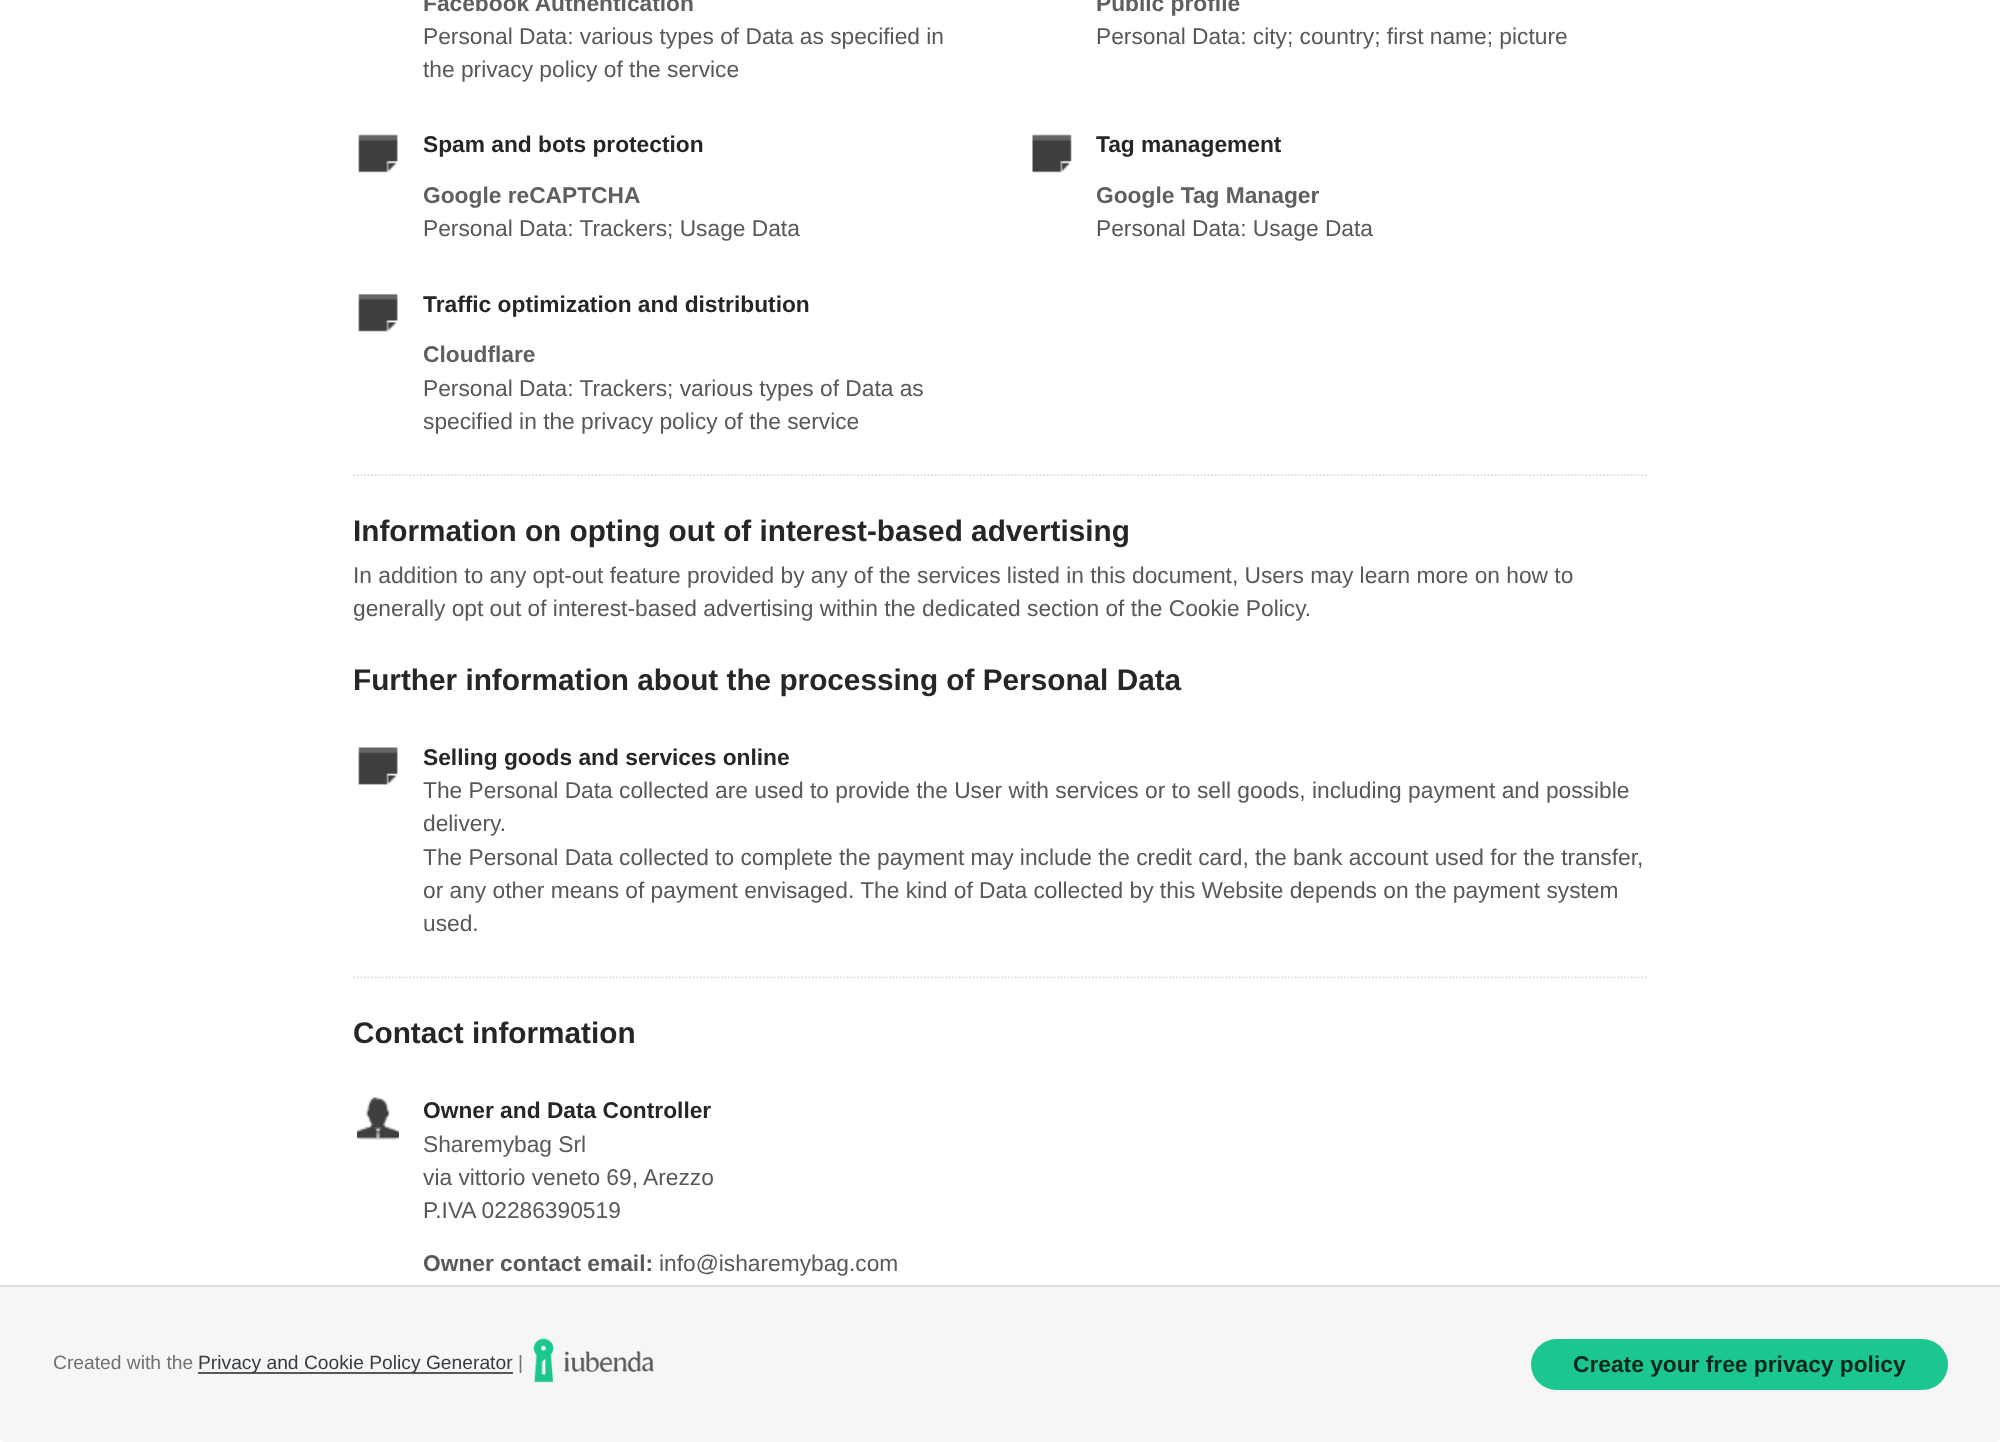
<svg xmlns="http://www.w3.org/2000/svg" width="2000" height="1442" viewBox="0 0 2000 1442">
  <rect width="100%" height="100%" fill="rgb(255,255,255)"/>
  <path d="M353.5 475H1648.5" fill="none" stroke="rgb(223,223,223)" stroke-width="1.8" stroke-dasharray="1.75 1.75"/>
  <text x="423" y="11" font-family="Liberation Sans" font-size="22.75" font-weight="bold" fill="rgb(97,94,94)">Facebook Authentication</text>
  <g font-family="Liberation Sans" font-size="22.75" fill="rgb(89,88,88)">
    <text>
      <tspan x="423" y="44">Personal Data: various types of Data as specified in</tspan>
      <tspan x="423" y="77">the privacy policy of the service</tspan>
    </text>
  </g>
  <text x="1096" y="11" font-family="Liberation Sans" font-size="22.75" font-weight="bold" fill="rgb(97,94,94)">Public profile</text>
  <text x="1096" y="44" font-family="Liberation Sans" font-size="22.75" fill="rgb(89,88,88)">Personal Data: city; country; first name; picture</text>
  <image x="358" y="134" width="40" height="39" href="pic1.png"/>
  <text x="423" y="152" font-family="Liberation Sans" font-size="22.75" font-weight="bold" fill="rgb(38,38,38)">Spam and bots protection</text>
  <text x="423" y="203" font-family="Liberation Sans" font-size="22.75" font-weight="bold" fill="rgb(97,94,94)">Google reCAPTCHA</text>
  <text x="423" y="236" font-family="Liberation Sans" font-size="22.75" fill="rgb(89,88,88)">Personal Data: Trackers; Usage Data</text>
  <image x="1032" y="134" width="40" height="39" href="pic2.png"/>
  <text x="1096" y="152" font-family="Liberation Sans" font-size="22.75" font-weight="bold" fill="rgb(38,38,38)">Tag management</text>
  <text x="1096" y="203" font-family="Liberation Sans" font-size="22.75" font-weight="bold" fill="rgb(97,94,94)">Google Tag Manager</text>
  <text x="1096" y="236" font-family="Liberation Sans" font-size="22.75" fill="rgb(89,88,88)">Personal Data: Usage Data</text>
  <image x="358" y="293" width="40" height="39" href="pic3.png"/>
  <text x="423" y="312" font-family="Liberation Sans" font-size="22.75" font-weight="bold" fill="rgb(38,38,38)">Traffic optimization and distribution</text>
  <text x="423" y="362" font-family="Liberation Sans" font-size="22.75" font-weight="bold" fill="rgb(97,94,94)">Cloudflare</text>
  <g font-family="Liberation Sans" font-size="22.75" fill="rgb(89,88,88)">
    <text>
      <tspan x="423" y="396">Personal Data: Trackers; various types of Data as</tspan>
      <tspan x="423" y="429">specified in the privacy policy of the service</tspan>
    </text>
  </g>
  <text x="353" y="541" font-family="Liberation Sans" font-size="29.75" font-weight="bold" fill="rgb(38,38,38)">Information on opting out of interest-based advertising</text>
  <g font-family="Liberation Sans" font-size="22.75" fill="rgb(89,88,88)">
    <text>
      <tspan x="353" y="583">In addition to any opt-out feature provided by any of the services listed in this document, Users may learn more on how to</tspan>
      <tspan x="353" y="616">generally opt out of interest-based advertising within the dedicated section of the Cookie Policy.</tspan>
    </text>
  </g>
  <text x="353" y="690" font-family="Liberation Sans" font-size="29.75" font-weight="bold" fill="rgb(38,38,38)">Further information about the processing of Personal Data</text>
  <path d="M353.5 977.5H1648.5" fill="none" stroke="rgb(223,223,223)" stroke-width="1.8" stroke-dasharray="1.75 1.75"/>
  <image x="358" y="747" width="40" height="38" href="pic4.png"/>
  <text x="423" y="765" font-family="Liberation Sans" font-size="22.75" font-weight="bold" fill="rgb(38,38,38)">Selling goods and services online</text>
  <g font-family="Liberation Sans" font-size="22.75" fill="rgb(89,88,88)">
    <text>
      <tspan x="423" y="798">The Personal Data collected are used to provide the User with services or to sell goods, including payment and possible</tspan>
      <tspan x="423" y="831">delivery.</tspan>
      <tspan x="423" y="865">The Personal Data collected to complete the payment may include the credit card, the bank account used for the transfer,</tspan>
      <tspan x="423" y="898">or any other means of payment envisaged. The kind of Data collected by this Website depends on the payment system</tspan>
      <tspan x="423" y="931">used.</tspan>
    </text>
  </g>
  <text x="353" y="1043" font-family="Liberation Sans" font-size="29.75" font-weight="bold" fill="rgb(38,38,38)">Contact information</text>
  <image x="357" y="1097" width="42" height="43" href="pic5.png"/>
  <text x="423" y="1118" font-family="Liberation Sans" font-size="22.75" font-weight="bold" fill="rgb(38,38,38)">Owner and Data Controller</text>
  <g font-family="Liberation Sans" font-size="22.75" fill="rgb(89,88,88)">
    <text>
      <tspan x="423" y="1152">Sharemybag Srl</tspan>
      <tspan x="423" y="1185">via vittorio veneto 69, Arezzo</tspan>
      <tspan x="423" y="1218">P.IVA 02286390519</tspan>
    </text>
  </g>
  <text x="423" y="1271" font-family="Liberation Sans" font-size="22.75" font-weight="bold" fill="rgb(89,88,88)">Owner contact email:</text>
  <text x="659" y="1271" font-family="Liberation Sans" font-size="22.75" fill="rgb(89,88,88)">info@isharemybag.com</text>
  <path d="M0 1285H2000V1437C2000 1440 1998 1442 1995 1442H5C2 1442 0 1440 0 1437Z" fill="rgb(246,246,246)"/>
  <rect x="0" y="1285" width="2000" height="2" fill="rgb(221,221,221)"/>
  <text x="53" y="1369" font-family="Liberation Sans" font-size="19.25" fill="rgb(113,113,113)">Created with the</text>
  <rect x="198" y="1372" width="315" height="2" fill="rgb(89,88,88)"/>
  <text x="198" y="1369" font-family="Liberation Sans" font-size="19.25" fill="rgb(51,59,67)">Privacy and Cookie Policy Generator</text>
  <text x="518" y="1369" font-family="Liberation Sans" font-size="19.25" fill="rgb(113,113,113)">|</text>
  <image x="533" y="1338" width="121" height="45" href="pic6.png"/>
  <rect x="1531" y="1339" width="417" height="51" rx="25.5" fill="rgb(28,198,145)"/>
  <text x="1573" y="1372" font-family="Liberation Sans" font-size="22.75" font-weight="bold" fill="rgb(1,40,27)">Create your free privacy policy</text>
</svg>
